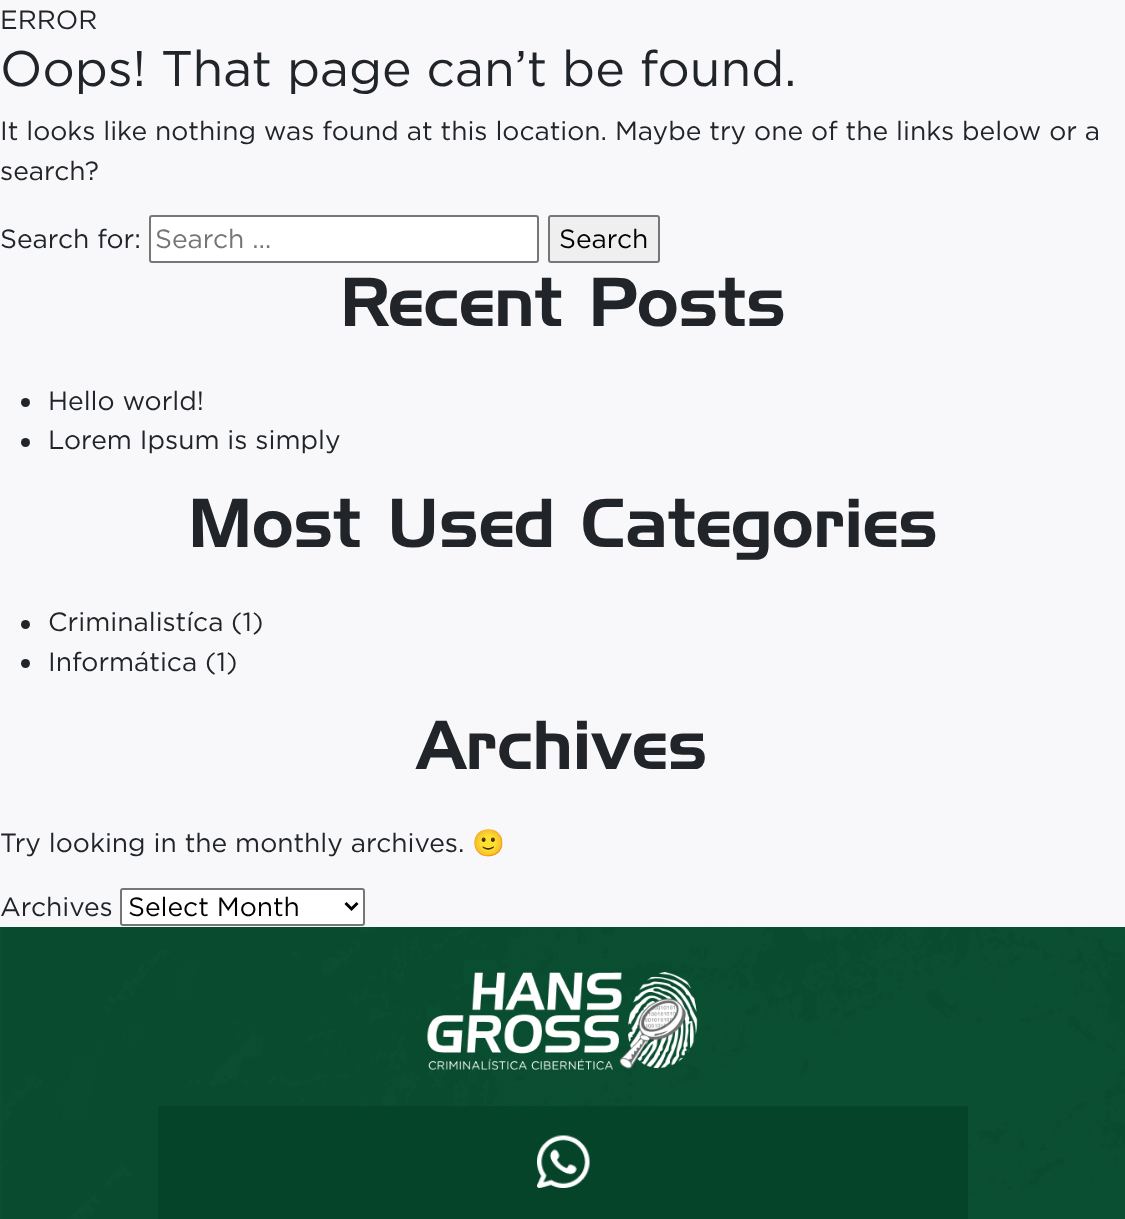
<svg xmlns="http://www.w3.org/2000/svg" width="1125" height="1219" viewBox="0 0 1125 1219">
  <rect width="100%" height="100%" fill="rgb(248,248,250)"/>
  <text x="0" y="29" font-family="Gotham" font-size="26.4" fill="rgb(33,37,41)">ERROR</text>
  <text x="0" y="86" font-family="Gotham" font-size="49.9" fill="rgb(33,37,41)">Oops! That page can’t be found.</text>
  <g font-family="Gotham" font-size="26.4" fill="rgb(33,37,41)">
    <text>
      <tspan x="0" y="140">It looks like nothing was found at this location. Maybe try one of the links below or a</tspan>
      <tspan x="0" y="180">search?</tspan>
    </text>
    <text x="0" y="248">Search for:</text>
  </g>
  <rect x="150" y="216" width="388" height="46" rx="2" fill="rgb(255,255,255)" stroke="rgb(118,118,118)" stroke-width="2"/>
  <text x="155" y="248" font-family="Gotham" font-size="26.4" fill="rgb(117,117,117)">Search …</text>
  <rect x="549" y="216" width="110" height="46" rx="2" fill="rgb(239,239,239)" stroke="rgb(118,118,118)" stroke-width="2"/>
  <text x="559" y="248" font-family="Gotham" font-size="26.4" fill="rgb(0,0,0)">Search</text>
  <text x="340" y="326" font-family="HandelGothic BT" font-size="67.25" fill="rgb(33,37,41)">Recent Posts</text>
  <circle cx="25.5" cy="402.5" r="4.5" fill="rgb(33,37,41)"/>
  <text x="48" y="410" font-family="Gotham" font-size="26.4" fill="rgb(33,37,41)">Hello world!</text>
  <circle cx="25.5" cy="442.5" r="4.5" fill="rgb(33,37,41)"/>
  <text x="48" y="449" font-family="Gotham" font-size="26.4" fill="rgb(33,37,41)">Lorem Ipsum is simply</text>
  <text x="188" y="547" font-family="HandelGothic BT" font-size="67.25" fill="rgb(33,37,41)">Most Used Categories</text>
  <circle cx="25.5" cy="624.5" r="4.5" fill="rgb(33,37,41)"/>
  <g font-family="Gotham" font-size="26.4" fill="rgb(33,37,41)">
    <text x="48" y="631">Criminalistíca</text>
    <text x="231" y="631">(1)</text>
  </g>
  <circle cx="25.5" cy="663.5" r="4.5" fill="rgb(33,37,41)"/>
  <g font-family="Gotham" font-size="26.4" fill="rgb(33,37,41)">
    <text x="48" y="671">Informática</text>
    <text x="205" y="671">(1)</text>
  </g>
  <text x="417" y="769" font-family="HandelGothic BT" font-size="67.25" fill="rgb(33,37,41)">Archives</text>
  <text x="0" y="852" font-family="Gotham" font-size="26.4" fill="rgb(33,37,41)">Try looking in the monthly archives.</text>
  <text x="472" y="852" font-family="Noto Color Emoji" font-size="26.4" fill="rgb(33,37,41)">🙂</text>
  <text x="0" y="916" font-family="Gotham" font-size="26.4" fill="rgb(33,37,41)">Archives</text>
  <rect x="121" y="889" width="243" height="36" rx="2" fill="rgb(255,255,255)" stroke="rgb(118,118,118)" stroke-width="2"/>
  <path d="M345.5 903L351.5 909L357.5 903" fill="none" stroke="rgb(0,0,0)" stroke-width="3"/>
  <text x="128" y="916" font-family="Gotham" font-size="26.4" fill="rgb(0,0,0)">Select Month</text>
  <image x="0" y="927" width="1125" height="292" href="pic1.png"/>
  <image x="427" y="972" width="271" height="98" href="pic2.png"/>
  <rect x="158" y="1106" width="810" height="113" fill="rgb(6,68,42)"/>
  <image x="537" y="1135" width="53" height="53" href="pic3.png"/>
</svg>
